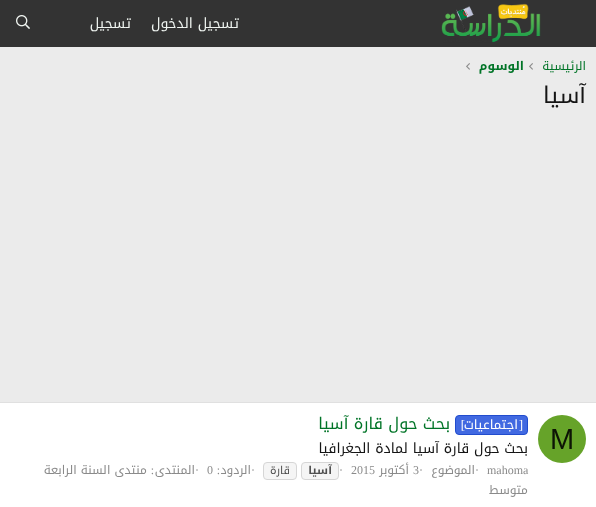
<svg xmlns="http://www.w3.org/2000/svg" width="596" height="507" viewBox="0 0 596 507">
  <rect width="100%" height="100%" fill="rgb(235,235,235)"/>
  <rect x="0" y="0" width="596" height="47" fill="rgb(51,51,51)"/>
  <image x="441" y="3" width="100" height="40" href="pic1.png"/>
  <g font-family="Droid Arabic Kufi" font-size="14" direction="rtl" fill="rgb(240,245,241)">
    <text x="239" y="28">تسجيل الدخول</text>
    <text x="131" y="28">تسجيل</text>
  </g>
  <image x="16" y="15" width="14" height="14" href="pic2.png"/>
  <text x="586" y="70" font-family="Droid Arabic Kufi" font-size="12" direction="rtl" fill="rgb(0,116,39)">الرئيسية</text>
  <image x="529" y="63" width="4" height="7" href="pic3.png"/>
  <text x="524" y="70" font-family="Droid Arabic Kufi" font-size="12" font-weight="bold" direction="rtl" fill="rgb(0,116,39)">الوسوم</text>
  <image x="466" y="63" width="4" height="7" href="pic3.png"/>
  <text x="586" y="103" font-family="Droid Arabic Kufi" font-size="23" direction="rtl" fill="rgb(20,20,20)">آسيا</text>
  <rect x="0" y="403" width="596" height="104" fill="rgb(255,255,255)"/>
  <rect x="0" y="402" width="596" height="1" fill="rgb(224,224,224)"/>
  <circle cx="562" cy="439" r="24" fill="rgb(102,163,41)"/>
  <text x="550" y="449" font-family="Liberation Sans" font-size="29" fill="rgb(13,20,5)">M</text>
  <rect x="455.5" y="415.5" width="72" height="19" rx="3.5" fill="rgb(65,105,225)" stroke="rgb(33,76,206)"/>
  <text x="523" y="429" font-family="Liberation Serif" font-size="13" direction="rtl" fill="rgb(255,255,255)">[</text>
  <text x="518" y="429" font-family="Droid Arabic Kufi" font-size="13" direction="rtl" fill="rgb(255,255,255)">اجتماعيات</text>
  <text x="465" y="429" font-family="Liberation Serif" font-size="13" direction="rtl" fill="rgb(255,255,255)">]</text>
  <text x="450" y="429" font-family="Droid Arabic Kufi" font-size="16" direction="rtl" fill="rgb(0,116,39)">بحث حول قارة آسيا</text>
  <text x="528" y="453" font-family="Droid Arabic Kufi" font-size="14" direction="rtl" fill="rgb(20,20,20)">بحث حول قارة آسيا لمادة الجغرافيا</text>
  <g font-family="Liberation Serif" font-size="12" fill="rgb(138,138,138)">
    <text x="487" y="474">mahoma</text>
    <text x="475" y="474">·</text>
  </g>
  <text x="475" y="474" font-family="Droid Arabic Kufi" font-size="12" direction="rtl" fill="rgb(138,138,138)">الموضوع</text>
  <g font-family="Liberation Serif" font-size="12" fill="rgb(138,138,138)">
    <text x="419" y="474">·</text>
    <text x="413" y="474">3</text>
  </g>
  <text x="409" y="474" font-family="Droid Arabic Kufi" font-size="12" direction="rtl" fill="rgb(138,138,138)">أكتوبر</text>
  <g font-family="Liberation Serif" font-size="12" fill="rgb(138,138,138)">
    <text x="351" y="474">2015</text>
    <text x="339" y="474">·</text>
  </g>
  <rect x="301.5" y="462.5" width="37" height="17" rx="3.5" fill="rgb(245,245,245)" stroke="rgb(214,214,214)"/>
  <text x="332" y="474" font-family="Droid Arabic Kufi" font-size="11" font-weight="bold" direction="rtl" fill="rgb(79,79,79)">آسيا</text>
  <rect x="263.5" y="462.5" width="33" height="17" rx="3.5" fill="rgb(245,245,245)" stroke="rgb(214,214,214)"/>
  <text x="290" y="474" font-family="Droid Arabic Kufi" font-size="11" direction="rtl" fill="rgb(79,79,79)">قارة</text>
  <text x="251" y="474" font-family="Liberation Serif" font-size="12" fill="rgb(138,138,138)">·</text>
  <text x="251" y="474" font-family="Droid Arabic Kufi" font-size="12" direction="rtl" fill="rgb(138,138,138)">الردود</text>
  <text x="220" y="474" font-family="Liberation Serif" font-size="12" direction="rtl" fill="rgb(138,138,138)">:</text>
  <g font-family="Liberation Serif" font-size="12" fill="rgb(138,138,138)">
    <text x="207" y="474">0</text>
    <text x="195" y="474">·</text>
  </g>
  <text x="195" y="474" font-family="Droid Arabic Kufi" font-size="12" direction="rtl" fill="rgb(138,138,138)">المنتدى</text>
  <text x="154" y="474" font-family="Liberation Serif" font-size="12" direction="rtl" fill="rgb(138,138,138)">:</text>
  <g font-family="Droid Arabic Kufi" font-size="12" direction="rtl" fill="rgb(138,138,138)">
    <text x="147" y="474">منتدى السنة الرابعة</text>
    <text x="528" y="494">متوسط</text>
  </g>
</svg>
